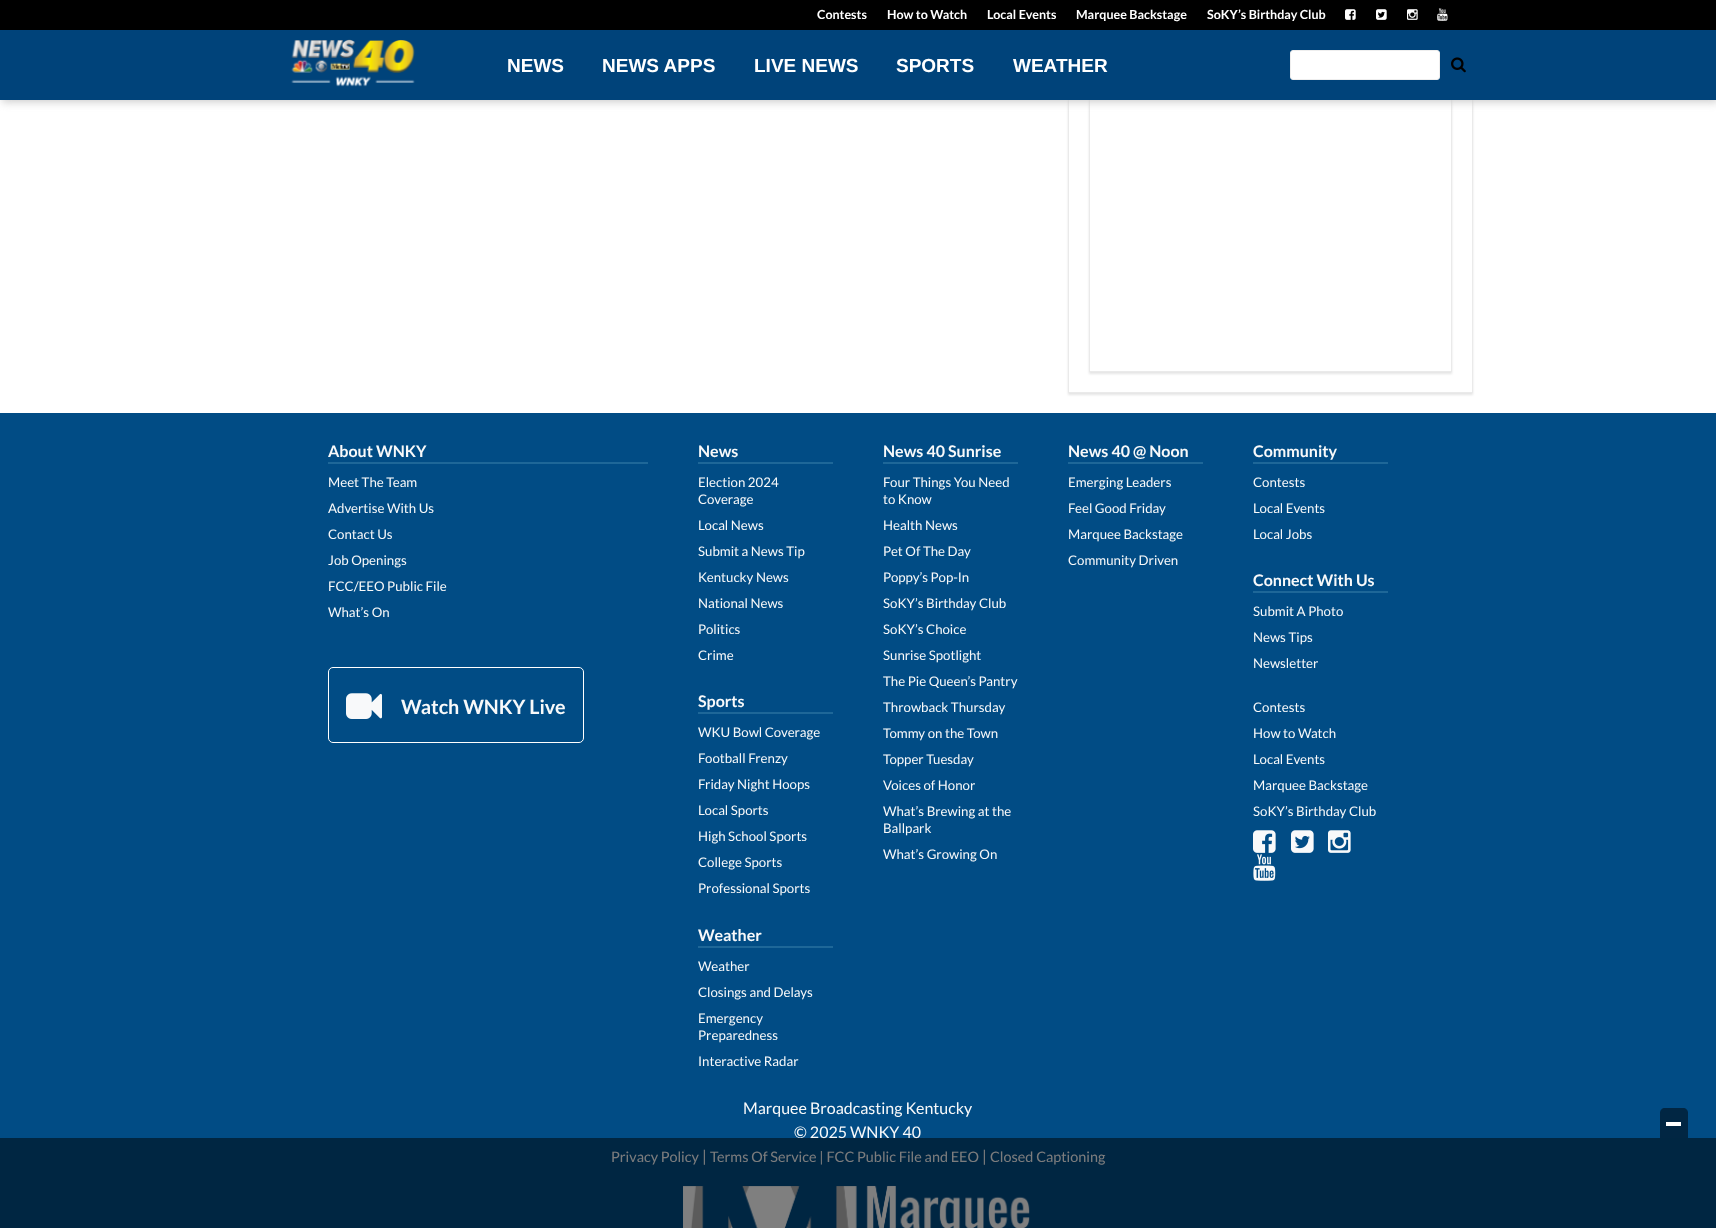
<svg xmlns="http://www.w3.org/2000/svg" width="1716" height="1228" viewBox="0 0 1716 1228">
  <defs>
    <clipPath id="clip1"><path d="M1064 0H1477V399H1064ZM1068-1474H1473V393H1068Z" clip-rule="evenodd"/></clipPath>
    <clipPath id="clip2"><path d="M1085 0H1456V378H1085ZM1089-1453H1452V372H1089Z" clip-rule="evenodd"/></clipPath>
  </defs>
  <rect width="100%" height="100%" fill="rgb(255,255,255)"/>
  <g clip-path="url(#clip1)">
    <rect x="1068" y="-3" width="405" height="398" fill="rgba(0,0,0,0.1)" filter="blur(1px)"/>
  </g>
  <rect x="1068.5" y="-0.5" width="404" height="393" fill="none" stroke="rgb(234,234,234)"/>
  <g clip-path="url(#clip2)">
    <rect x="1089" y="-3" width="363" height="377" fill="rgba(0,0,0,0.1)" filter="blur(1px)"/>
  </g>
  <rect x="1089.5" y="-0.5" width="362" height="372" fill="none" stroke="rgb(234,234,234)"/>
  <rect x="0" y="413" width="1716" height="815" fill="rgb(1,76,133)"/>
  <text x="794" y="1138" font-family="Lato" font-size="16" fill="rgb(248,249,250)">© 2025 WNKY 40</text>
  <text x="611" y="1162" font-family="Lato" font-size="14.4" fill="rgb(248,249,250)">Privacy Policy</text>
  <text x="702" y="1162" font-family="Lato" font-size="16" fill="rgb(248,249,250)">|</text>
  <text x="710" y="1162" font-family="Lato" font-size="14.4" fill="rgb(248,249,250)">Terms Of Service | FCC Public File and EEO</text>
  <text x="982" y="1162" font-family="Lato" font-size="16" fill="rgb(248,249,250)">|</text>
  <text x="990" y="1162" font-family="Lato" font-size="14.4" fill="rgb(248,249,250)">Closed Captioning</text>
  <image x="683" y="1185" width="347" height="43" href="pic12.png"/>
  <rect x="0" y="1138" width="1716" height="90" fill="rgba(0,0,0,0.5)"/>
  <path d="M1665 1108H1683C1686 1108 1688 1110 1688 1113V1138H1660V1113C1660 1110 1662 1108 1665 1108Z" fill="rgb(1,38,67)"/>
  <rect x="1666" y="1122" width="15" height="4" fill="rgb(255,255,255)"/>
  <rect x="2" y="2" width="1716" height="100" fill="rgb(204,204,204)" filter="blur(4px)"/>
  <rect x="0" y="30" width="1716" height="70" fill="rgb(0,67,122)"/>
  <rect x="0" y="0" width="1716" height="30" fill="rgb(0,0,0)"/>
  <g font-family="Lato" font-size="12.5" font-weight="bold" fill="rgb(255,255,255)">
    <text x="817" y="19">Contests</text>
    <text x="887" y="19">How to Watch</text>
    <text x="987" y="19">Local Events</text>
    <text x="1076" y="19">Marquee Backstage</text>
    <text x="1207" y="19">SoKY’s Birthday Club</text>
  </g>
  <image x="1345" y="9" width="11" height="11" href="pic1.png"/>
  <image x="1376" y="9" width="11" height="11" href="pic2.png"/>
  <image x="1407" y="9" width="11" height="11" href="pic3.png"/>
  <image x="1437" y="8" width="11" height="13" href="pic4.png"/>
  <image x="291" y="39" width="124" height="48" href="pic5.png"/>
  <g font-family="Liberation Sans" font-size="19" font-weight="bold" fill="rgb(255,255,255)">
    <text x="507" y="72">NEWS</text>
    <text x="602" y="72">NEWS APPS</text>
    <text x="754" y="72">LIVE NEWS</text>
    <text x="896" y="72">SPORTS</text>
    <text x="1013" y="72">WEATHER</text>
  </g>
  <rect x="1290.5" y="50.5" width="149" height="29" rx="2.5" fill="rgb(255,255,255)" stroke="rgb(238,238,238)"/>
  <image x="1451" y="57" width="15" height="16" href="pic6.png"/>
  <rect x="328" y="462" width="320" height="2" fill="rgb(30,103,152)"/>
  <text x="328" y="457" font-family="Lato" font-size="16" font-weight="bold" fill="rgb(248,249,250)">About WNKY</text>
  <g font-family="Lato" font-size="13.25" fill="rgb(248,249,250)">
    <text>
      <tspan x="328" y="487">Meet The Team</tspan>
      <tspan x="328" y="513">Advertise With Us</tspan>
      <tspan x="328" y="539">Contact Us</tspan>
      <tspan x="328" y="565">Job Openings</tspan>
      <tspan x="328" y="591">FCC/EEO Public File</tspan>
      <tspan x="328" y="617">What’s On</tspan>
    </text>
  </g>
  <rect x="328.5" y="667.5" width="255" height="75" rx="4.5" fill="none" stroke="rgb(255,255,255)"/>
  <image x="346" y="693" width="36" height="26" href="pic7.png"/>
  <text x="401" y="714" font-family="Lato" font-size="19.75" font-weight="bold" fill="rgb(248,249,250)">Watch WNKY Live</text>
  <rect x="698" y="462" width="135" height="2" fill="rgb(30,103,152)"/>
  <text x="698" y="457" font-family="Lato" font-size="16" font-weight="bold" fill="rgb(248,249,250)">News</text>
  <g font-family="Lato" font-size="13.25" fill="rgb(248,249,250)">
    <text>
      <tspan x="698" y="487">Election 2024</tspan>
      <tspan x="698" y="504">Coverage</tspan>
      <tspan x="698" y="530">Local News</tspan>
      <tspan x="698" y="556">Submit a News Tip</tspan>
      <tspan x="698" y="582">Kentucky News</tspan>
      <tspan x="698" y="608">National News</tspan>
      <tspan x="698" y="634">Politics</tspan>
      <tspan x="698" y="660">Crime</tspan>
    </text>
  </g>
  <rect x="698" y="712" width="135" height="2" fill="rgb(30,103,152)"/>
  <text x="698" y="707" font-family="Lato" font-size="16" font-weight="bold" fill="rgb(248,249,250)">Sports</text>
  <g font-family="Lato" font-size="13.25" fill="rgb(248,249,250)">
    <text>
      <tspan x="698" y="737">WKU Bowl Coverage</tspan>
      <tspan x="698" y="763">Football Frenzy</tspan>
      <tspan x="698" y="789">Friday Night Hoops</tspan>
      <tspan x="698" y="815">Local Sports</tspan>
      <tspan x="698" y="841">High School Sports</tspan>
      <tspan x="698" y="867">College Sports</tspan>
      <tspan x="698" y="893">Professional Sports</tspan>
    </text>
  </g>
  <rect x="698" y="946" width="135" height="2" fill="rgb(30,103,152)"/>
  <text x="698" y="941" font-family="Lato" font-size="16" font-weight="bold" fill="rgb(248,249,250)">Weather</text>
  <g font-family="Lato" font-size="13.25" fill="rgb(248,249,250)">
    <text>
      <tspan x="698" y="971">Weather</tspan>
      <tspan x="698" y="997">Closings and Delays</tspan>
      <tspan x="698" y="1023">Emergency</tspan>
      <tspan x="698" y="1040">Preparedness</tspan>
      <tspan x="698" y="1066">Interactive Radar</tspan>
    </text>
  </g>
  <rect x="883" y="462" width="135" height="2" fill="rgb(30,103,152)"/>
  <text x="883" y="457" font-family="Lato" font-size="16" font-weight="bold" fill="rgb(248,249,250)">News 40 Sunrise</text>
  <g font-family="Lato" font-size="13.25" fill="rgb(248,249,250)">
    <text>
      <tspan x="883" y="487">Four Things You Need</tspan>
      <tspan x="883" y="504">to Know</tspan>
      <tspan x="883" y="530">Health News</tspan>
      <tspan x="883" y="556">Pet Of The Day</tspan>
      <tspan x="883" y="582">Poppy’s Pop-In</tspan>
      <tspan x="883" y="608">SoKY’s Birthday Club</tspan>
      <tspan x="883" y="634">SoKY’s Choice</tspan>
      <tspan x="883" y="660">Sunrise Spotlight</tspan>
      <tspan x="883" y="686">The Pie Queen’s Pantry</tspan>
      <tspan x="883" y="712">Throwback Thursday</tspan>
      <tspan x="883" y="738">Tommy on the Town</tspan>
      <tspan x="883" y="764">Topper Tuesday</tspan>
      <tspan x="883" y="790">Voices of Honor</tspan>
      <tspan x="883" y="816">What’s Brewing at the</tspan>
      <tspan x="883" y="833">Ballpark</tspan>
      <tspan x="883" y="859">What’s Growing On</tspan>
    </text>
  </g>
  <rect x="1068" y="462" width="135" height="2" fill="rgb(30,103,152)"/>
  <text x="1068" y="457" font-family="Lato" font-size="16" font-weight="bold" fill="rgb(248,249,250)">News 40 @ Noon</text>
  <g font-family="Lato" font-size="13.25" fill="rgb(248,249,250)">
    <text>
      <tspan x="1068" y="487">Emerging Leaders</tspan>
      <tspan x="1068" y="513">Feel Good Friday</tspan>
      <tspan x="1068" y="539">Marquee Backstage</tspan>
      <tspan x="1068" y="565">Community Driven</tspan>
    </text>
  </g>
  <rect x="1253" y="462" width="135" height="2" fill="rgb(30,103,152)"/>
  <text x="1253" y="457" font-family="Lato" font-size="16" font-weight="bold" fill="rgb(248,249,250)">Community</text>
  <g font-family="Lato" font-size="13.25" fill="rgb(248,249,250)">
    <text>
      <tspan x="1253" y="487">Contests</tspan>
      <tspan x="1253" y="513">Local Events</tspan>
      <tspan x="1253" y="539">Local Jobs</tspan>
    </text>
  </g>
  <rect x="1253" y="591" width="135" height="2" fill="rgb(30,103,152)"/>
  <text x="1253" y="586" font-family="Lato" font-size="16" font-weight="bold" fill="rgb(248,249,250)">Connect With Us</text>
  <g font-family="Lato" font-size="13.25" fill="rgb(248,249,250)">
    <text>
      <tspan x="1253" y="616">Submit A Photo</tspan>
      <tspan x="1253" y="642">News Tips</tspan>
      <tspan x="1253" y="668">Newsletter</tspan>
    </text>
    <text>
      <tspan x="1253" y="712">Contests</tspan>
      <tspan x="1253" y="738">How to Watch</tspan>
      <tspan x="1253" y="764">Local Events</tspan>
      <tspan x="1253" y="790">Marquee Backstage</tspan>
      <tspan x="1253" y="816">SoKY’s Birthday Club</tspan>
    </text>
  </g>
  <image x="1253" y="830" width="23" height="23" href="pic8.png"/>
  <image x="1291" y="830" width="23" height="23" href="pic9.png"/>
  <image x="1328" y="830" width="23" height="23" href="pic10.png"/>
  <image x="1253" y="854" width="23" height="27" href="pic11.png"/>
  <text x="743" y="1114" font-family="Lato" font-size="16" fill="rgb(248,249,250)">Marquee Broadcasting Kentucky</text>
</svg>
